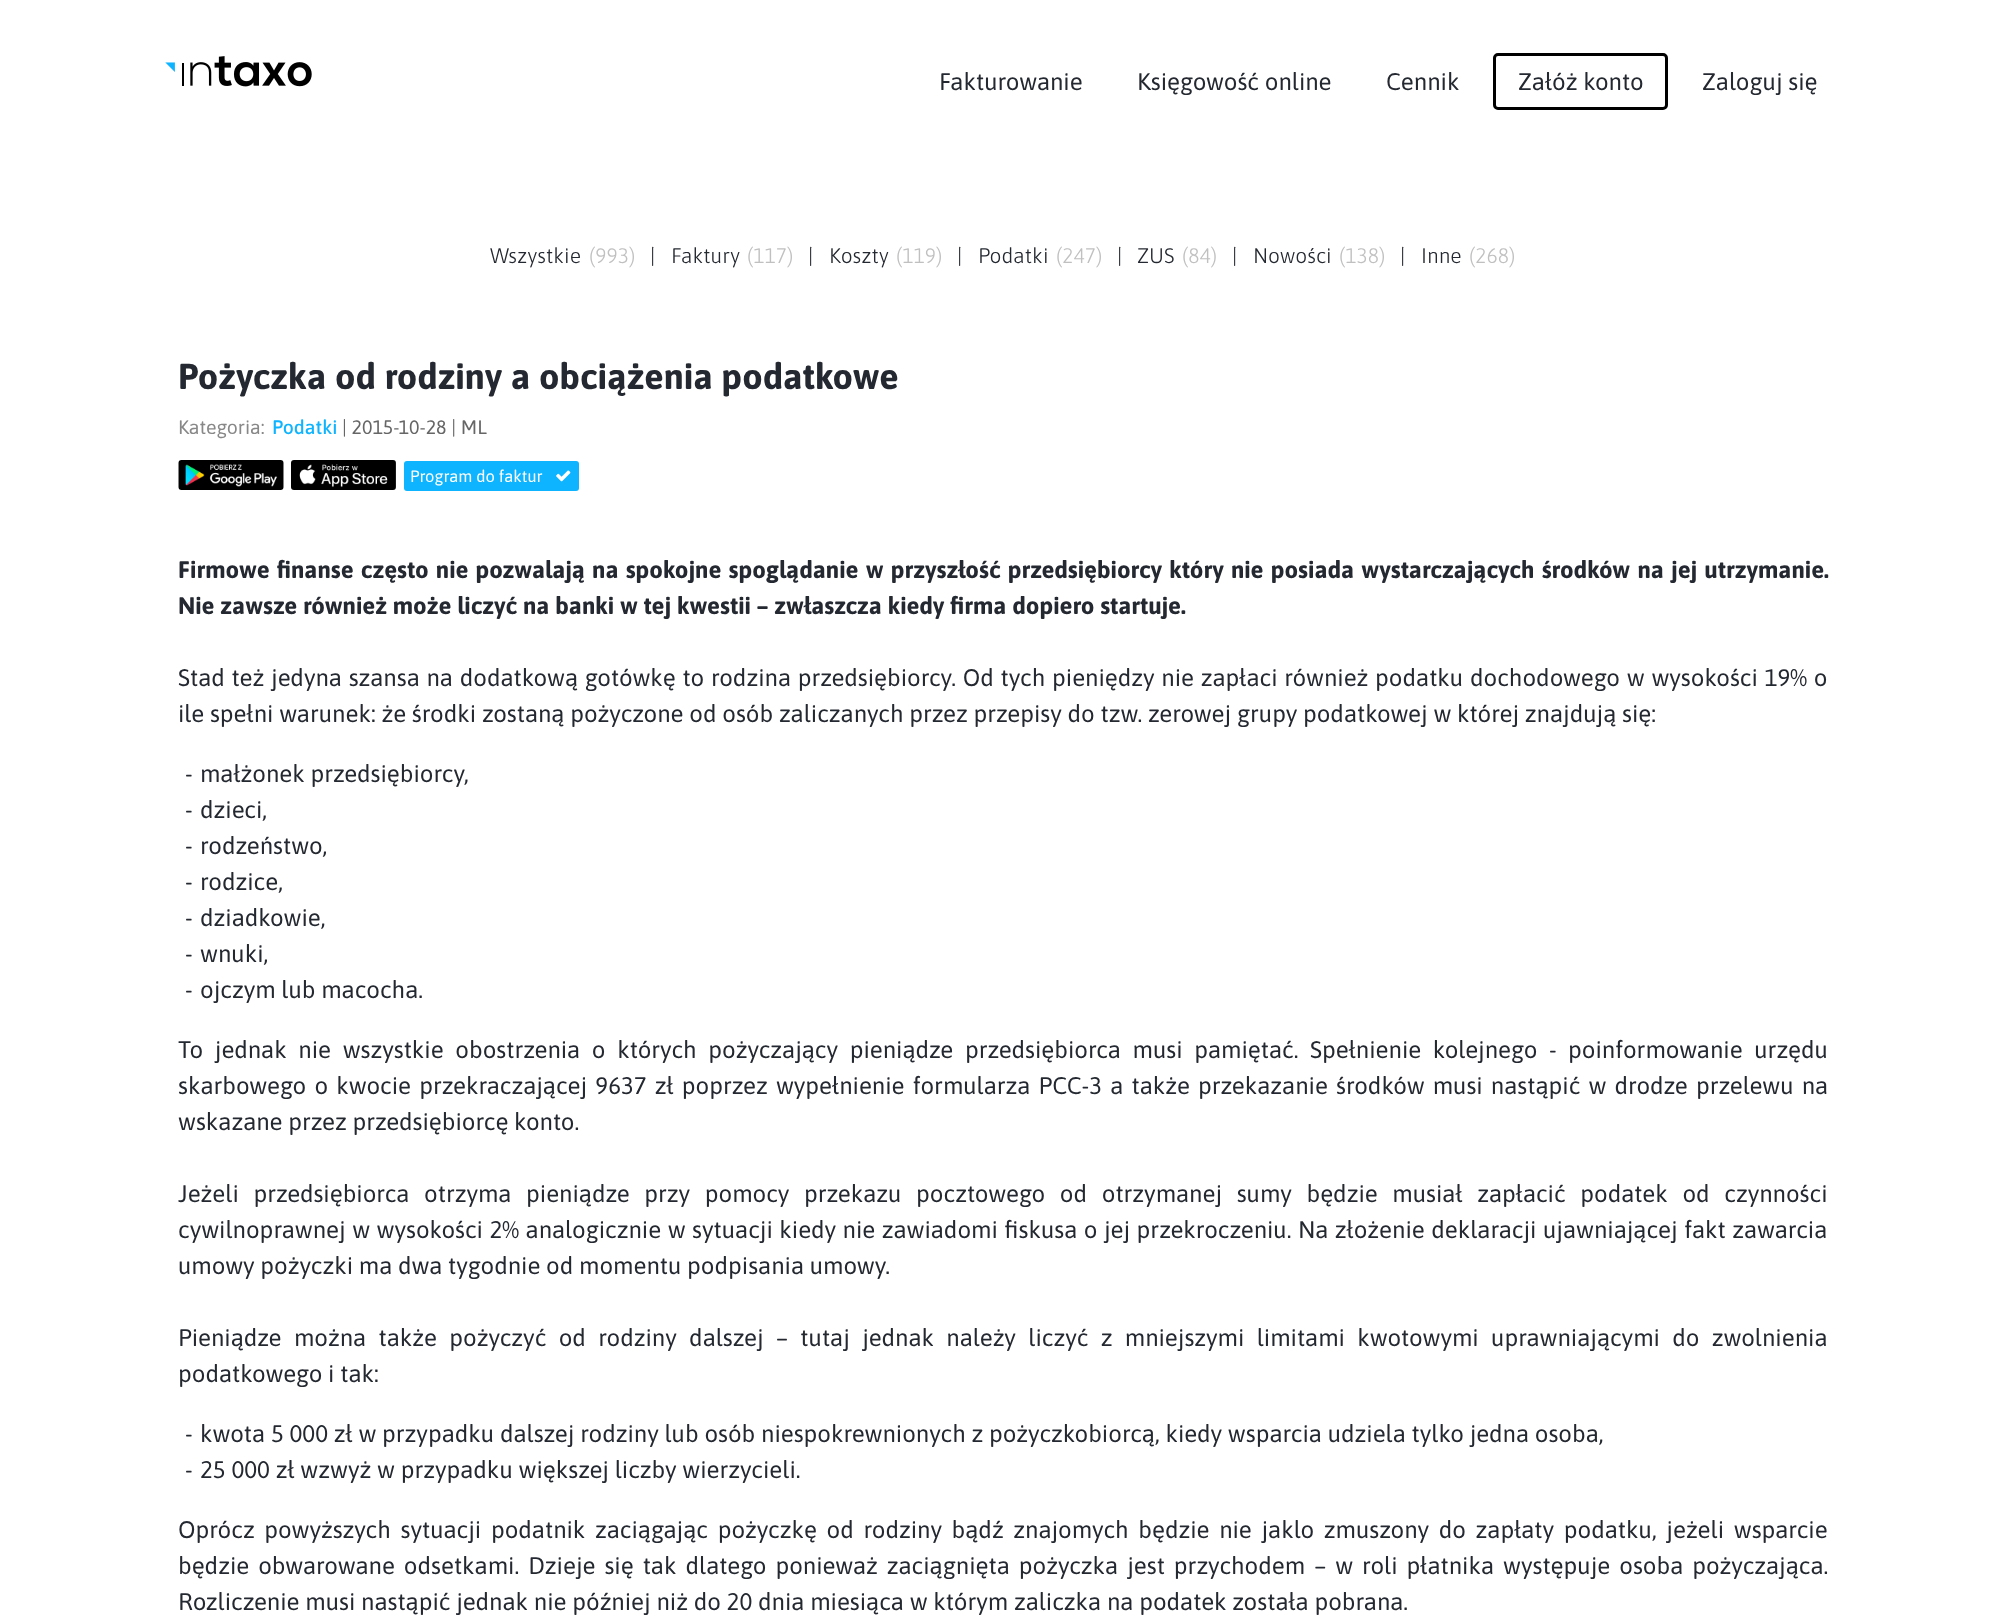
<svg xmlns="http://www.w3.org/2000/svg" width="2005" height="1616" viewBox="0 0 2005 1616">
  <rect width="100%" height="100%" fill="rgb(255,255,255)"/>
  <image x="165" y="56" width="147" height="31" href="pic1.png"/>
  <g font-family="Asap" font-size="24" fill="rgb(36,40,48)">
    <text x="939" y="90">Fakturowanie</text>
    <text x="1137" y="90">Księgowość online</text>
    <text x="1386" y="90">Cennik</text>
  </g>
  <rect x="1494.5" y="54.5" width="172" height="54" rx="3.5" fill="none" stroke="rgb(0,0,0)" stroke-width="3"/>
  <g font-family="Asap" font-size="24" fill="rgb(36,40,48)">
    <text x="1518" y="90">Załóż konto</text>
    <text x="1702" y="90">Zaloguj się</text>
  </g>
  <text x="490" y="263" font-family="Asap" font-size="21" font-weight="300" fill="rgb(36,40,48)">Wszystkie</text>
  <text x="589" y="263" font-family="Asap" font-size="21" font-weight="300" fill="rgb(192,192,192)">(993)</text>
  <g font-family="Asap" font-size="21" font-weight="300" fill="rgb(36,40,48)">
    <text x="650" y="263">|</text>
    <text x="671" y="263">Faktury</text>
  </g>
  <text x="747" y="263" font-family="Asap" font-size="21" font-weight="300" fill="rgb(192,192,192)">(117)</text>
  <g font-family="Asap" font-size="21" font-weight="300" fill="rgb(36,40,48)">
    <text x="808" y="263">|</text>
    <text x="829" y="263">Koszty</text>
  </g>
  <text x="896" y="263" font-family="Asap" font-size="21" font-weight="300" fill="rgb(192,192,192)">(119)</text>
  <g font-family="Asap" font-size="21" font-weight="300" fill="rgb(36,40,48)">
    <text x="957" y="263">|</text>
    <text x="978" y="263">Podatki</text>
  </g>
  <text x="1056" y="263" font-family="Asap" font-size="21" font-weight="300" fill="rgb(192,192,192)">(247)</text>
  <g font-family="Asap" font-size="21" font-weight="300" fill="rgb(36,40,48)">
    <text x="1117" y="263">|</text>
    <text x="1137" y="263">ZUS</text>
  </g>
  <text x="1182" y="263" font-family="Asap" font-size="21" font-weight="300" fill="rgb(192,192,192)">(84)</text>
  <g font-family="Asap" font-size="21" font-weight="300" fill="rgb(36,40,48)">
    <text x="1232" y="263">|</text>
    <text x="1253" y="263">Nowości</text>
  </g>
  <text x="1339" y="263" font-family="Asap" font-size="21" font-weight="300" fill="rgb(192,192,192)">(138)</text>
  <g font-family="Asap" font-size="21" font-weight="300" fill="rgb(36,40,48)">
    <text x="1400" y="263">|</text>
    <text x="1421" y="263">Inne</text>
  </g>
  <text x="1469" y="263" font-family="Asap" font-size="21" font-weight="300" fill="rgb(192,192,192)">(268)</text>
  <text x="178" y="389" font-family="Asap" font-size="36" font-weight="bold" fill="rgb(36,40,48)">Pożyczka od rodziny a obciążenia podatkowe</text>
  <text x="178" y="434" font-family="Asap" font-size="19.5" fill="rgb(136,136,136)">Kategoria:</text>
  <text x="272" y="434" font-family="Asap" font-size="19.5" font-weight="500" fill="rgb(14,180,255)">Podatki</text>
  <text x="342" y="434" font-family="Asap" font-size="19.5" fill="rgb(102,102,102)">| 2015-10-28 | ML</text>
  <image x="178" y="460" width="106" height="30" href="pic2.png"/>
  <image x="291" y="460" width="105" height="30" href="pic3.png"/>
  <rect x="404" y="461" width="175" height="30" rx="3" fill="rgb(14,180,255)"/>
  <text x="410" y="482" font-family="Asap" font-size="16.5" fill="rgb(255,255,255)">Program do faktur</text>
  <image x="556" y="470" width="15" height="12" href="pic4.png"/>
  <g font-family="Asap" font-size="24" font-weight="bold" fill="rgb(36,40,48)">
    <text>
      <tspan x="178" y="578" word-spacing="1.4">Firmowe finanse często nie pozwalają na spokojne spoglądanie w przyszłość przedsiębiorcy który nie posiada wystarczających środków na jej utrzymanie.</tspan>
      <tspan x="178" y="614">Nie zawsze również może liczyć na banki w tej kwestii – zwłaszcza kiedy firma dopiero startuje.</tspan>
    </text>
  </g>
  <g font-family="Asap" font-size="24" fill="rgb(36,40,48)">
    <text>
      <tspan x="178" y="686" word-spacing="1">Stad też jedyna szansa na dodatkową gotówkę to rodzina przedsiębiorcy. Od tych pieniędzy nie zapłaci również podatku dochodowego w wysokości 19% o</tspan>
      <tspan x="178" y="722">ile spełni warunek: że środki zostaną pożyczone od osób zaliczanych przez przepisy do tzw. zerowej grupy podatkowej w której znajdują się:</tspan>
    </text>
    <text x="185" y="782">-</text>
    <text x="200" y="782">małżonek przedsiębiorcy,</text>
    <text x="185" y="818">-</text>
    <text x="200" y="818">dzieci,</text>
    <text x="185" y="854">-</text>
    <text x="200" y="854">rodzeństwo,</text>
    <text x="185" y="890">-</text>
    <text x="200" y="890">rodzice,</text>
    <text x="185" y="926">-</text>
    <text x="200" y="926">dziadkowie,</text>
    <text x="185" y="962">-</text>
    <text x="200" y="962">wnuki,</text>
    <text x="185" y="998">-</text>
    <text x="200" y="998">ojczym lub macocha.</text>
    <text x="178" y="1058" word-spacing="5.9">To jednak nie wszystkie obostrzenia o których pożyczający pieniądze przedsiębiorca musi pamiętać. Spełnienie kolejnego -</text>
    <text x="1568" y="1058" word-spacing="5.9">poinformowanie urzędu</text>
    <text>
      <tspan x="178" y="1094" word-spacing="2.4">skarbowego o kwocie przekraczającej 9637 zł poprzez wypełnienie formularza PCC-3 a także przekazanie środków musi nastąpić w drodze przelewu na</tspan>
      <tspan x="178" y="1130">wskazane przez przedsiębiorcę konto.</tspan>
    </text>
    <text>
      <tspan x="178" y="1202" word-spacing="8.9">Jeżeli przedsiębiorca otrzyma pieniądze przy pomocy przekazu pocztowego od otrzymanej sumy będzie musiał zapłacić podatek od czynności</tspan>
      <tspan x="178" y="1238" word-spacing="0.75">cywilnoprawnej w wysokości 2% analogicznie w sytuacji kiedy nie zawiadomi fiskusa o jej przekroczeniu. Na złożenie deklaracji ujawniającej fakt zawarcia</tspan>
      <tspan x="178" y="1274">umowy pożyczki ma dwa tygodnie od momentu podpisania umowy.</tspan>
    </text>
    <text>
      <tspan x="178" y="1346" word-spacing="6.6">Pieniądze można także pożyczyć od rodziny dalszej – tutaj jednak należy liczyć z mniejszymi limitami kwotowymi uprawniającymi do zwolnienia</tspan>
      <tspan x="178" y="1382">podatkowego i tak:</tspan>
    </text>
    <text x="185" y="1442">-</text>
    <text x="200" y="1442">kwota 5 000 zł w przypadku dalszej rodziny lub osób niespokrewnionych z pożyczkobiorcą, kiedy wsparcia udziela tylko jedna osoba,</text>
    <text x="185" y="1478">-</text>
    <text x="200" y="1478">25 000 zł wzwyż w przypadku większej liczby wierzycieli.</text>
    <text>
      <tspan x="178" y="1538" word-spacing="3.9">Oprócz powyższych sytuacji podatnik zaciągając pożyczkę od rodziny bądź znajomych będzie nie jaklo zmuszony do zapłaty podatku, jeżeli wsparcie</tspan>
      <tspan x="178" y="1574" word-spacing="3.25">będzie obwarowane odsetkami. Dzieje się tak dlatego ponieważ zaciągnięta pożyczka jest przychodem – w roli płatnika występuje osoba pożyczająca.</tspan>
      <tspan x="178" y="1610">Rozliczenie musi nastąpić jednak nie później niż do 20 dnia miesiąca w którym zaliczka na podatek została pobrana.</tspan>
    </text>
  </g>
</svg>
